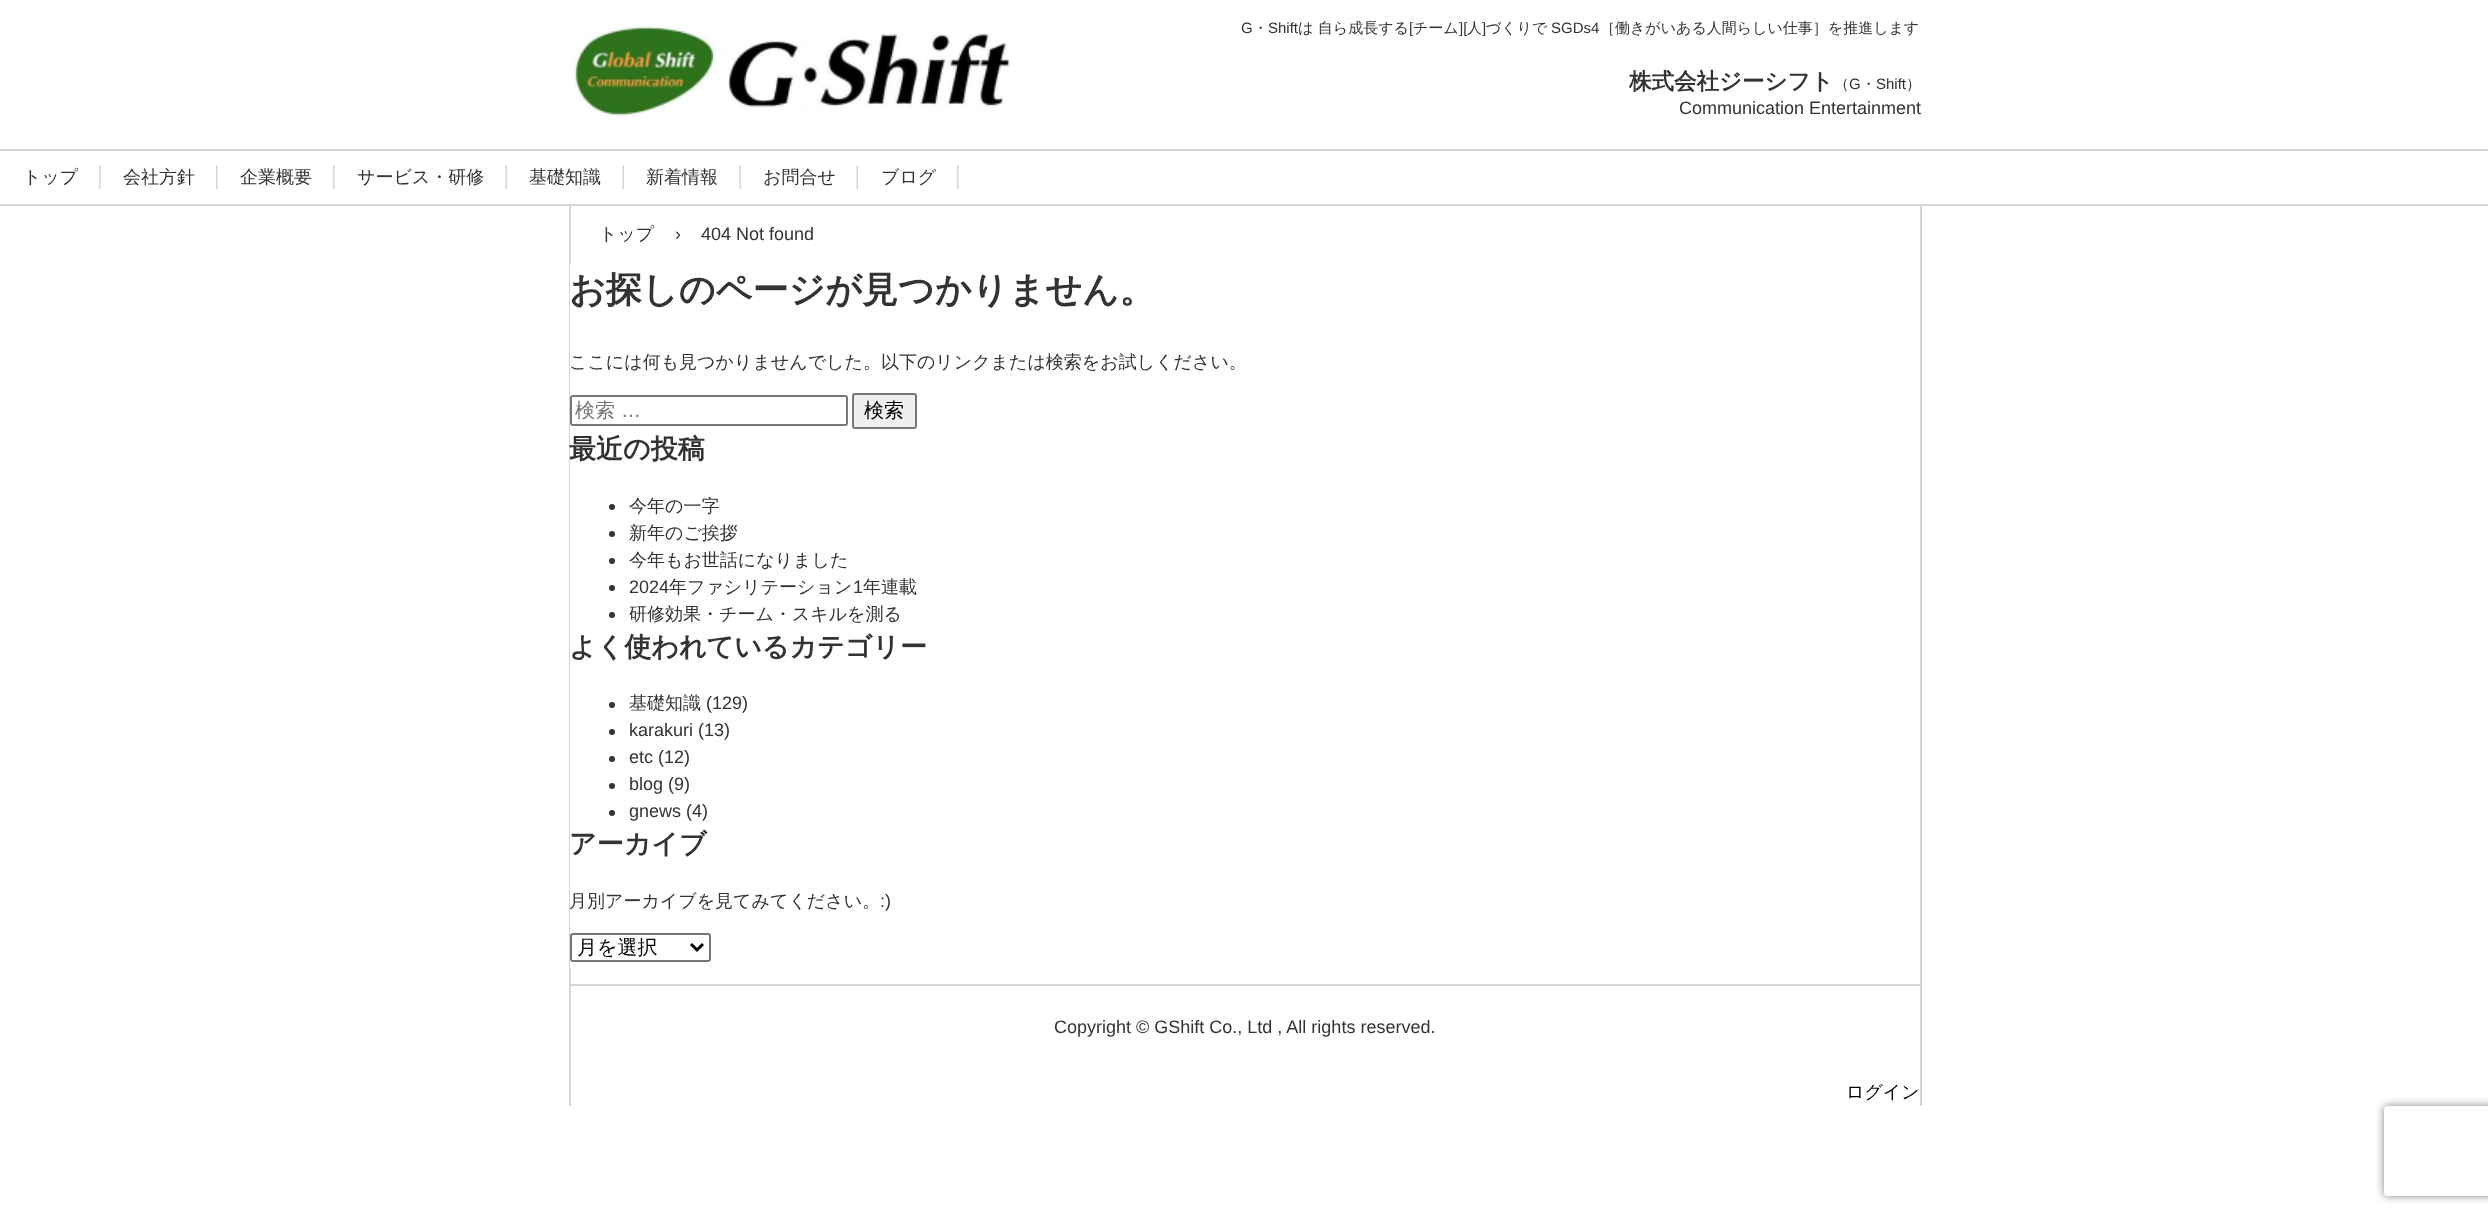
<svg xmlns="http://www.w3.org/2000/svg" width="2488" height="1216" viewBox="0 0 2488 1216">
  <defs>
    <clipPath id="clip1"><path d="M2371 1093H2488V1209H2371ZM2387 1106H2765C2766.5 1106 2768 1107.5 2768 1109V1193C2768 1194.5 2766.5 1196 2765 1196H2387C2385.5 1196 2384 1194.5 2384 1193V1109C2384 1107.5 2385.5 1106 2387 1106Z" clip-rule="evenodd"/></clipPath>
  </defs>
  <rect width="100%" height="100%" fill="rgb(255,255,255)"/>
  <image x="570" y="26" width="441" height="91" href="pic1.png"/>
  <text x="1241" y="33" font-family="Liberation Sans" font-size="15" fill="rgb(51,51,51)">G</text>
  <text x="1253" y="33" font-family="WenQuanYi Zen Hei" font-size="15" font-weight="500" fill="rgb(51,51,51)">・</text>
  <text x="1268" y="33" font-family="Liberation Sans" font-size="15" fill="rgb(51,51,51)">Shift</text>
  <text x="1298" y="33" font-family="WenQuanYi Zen Hei" font-size="15" font-weight="500" fill="rgb(51,51,51)">は 自ら成長する</text>
  <text x="1409" y="33" font-family="Liberation Sans" font-size="15" fill="rgb(51,51,51)">[</text>
  <text x="1413" y="33" font-family="WenQuanYi Zen Hei" font-size="15" font-weight="500" fill="rgb(51,51,51)">チーム</text>
  <text x="1459" y="33" font-family="Liberation Sans" font-size="15" fill="rgb(51,51,51)">][</text>
  <text x="1467" y="33" font-family="WenQuanYi Zen Hei" font-size="15" font-weight="500" fill="rgb(51,51,51)">人</text>
  <text x="1482" y="33" font-family="Liberation Sans" font-size="15" fill="rgb(51,51,51)">]</text>
  <text x="1486" y="33" font-family="WenQuanYi Zen Hei" font-size="15" font-weight="500" fill="rgb(51,51,51)">づくりで</text>
  <text x="1551" y="33" font-family="Liberation Sans" font-size="15" fill="rgb(51,51,51)">SGDs4</text>
  <text x="1600" y="33" font-family="WenQuanYi Zen Hei" font-size="15" font-weight="500" fill="rgb(51,51,51)">［働きがいある人間らしい仕事］を推進します</text>
  <text x="1629" y="89" font-family="WenQuanYi Zen Hei" font-size="22.5" font-weight="bold" fill="rgb(51,51,51)">株式会社ジーシフト</text>
  <text x="1834" y="89" font-family="WenQuanYi Zen Hei" font-size="15" font-weight="500" fill="rgb(51,51,51)">（</text>
  <text x="1849" y="89" font-family="Liberation Sans" font-size="15" fill="rgb(51,51,51)">G</text>
  <text x="1861" y="89" font-family="WenQuanYi Zen Hei" font-size="15" font-weight="500" fill="rgb(51,51,51)">・</text>
  <text x="1876" y="89" font-family="Liberation Sans" font-size="15" fill="rgb(51,51,51)">Shift</text>
  <text x="1906" y="89" font-family="WenQuanYi Zen Hei" font-size="15" font-weight="500" fill="rgb(51,51,51)">）</text>
  <text x="1679" y="114" font-family="Liberation Sans" font-size="18" fill="rgb(51,51,51)">Communication Entertainment</text>
  <rect x="0" y="149" width="2488" height="2" fill="rgb(213,213,213)"/>
  <rect x="0" y="204" width="2488" height="2" fill="rgb(213,213,213)"/>
  <image x="99" y="165" width="2" height="24" href="pic2.png"/>
  <text x="23" y="183" font-family="WenQuanYi Zen Hei" font-size="18" font-weight="500" fill="rgb(51,51,51)">トップ</text>
  <image x="216" y="165" width="2" height="24" href="pic2.png"/>
  <text x="123" y="183" font-family="WenQuanYi Zen Hei" font-size="18" font-weight="500" fill="rgb(51,51,51)">会社方針</text>
  <image x="333" y="165" width="2" height="24" href="pic2.png"/>
  <text x="240" y="183" font-family="WenQuanYi Zen Hei" font-size="18" font-weight="500" fill="rgb(51,51,51)">企業概要</text>
  <image x="505" y="165" width="2" height="24" href="pic3.png"/>
  <text x="357" y="183" font-family="WenQuanYi Zen Hei" font-size="18" font-weight="500" fill="rgb(51,51,51)">サービス・研修</text>
  <image x="622" y="165" width="2" height="24" href="pic3.png"/>
  <text x="529" y="183" font-family="WenQuanYi Zen Hei" font-size="18" font-weight="500" fill="rgb(51,51,51)">基礎知識</text>
  <image x="739" y="165" width="2" height="24" href="pic3.png"/>
  <text x="646" y="183" font-family="WenQuanYi Zen Hei" font-size="18" font-weight="500" fill="rgb(51,51,51)">新着情報</text>
  <image x="856" y="165" width="2" height="24" href="pic3.png"/>
  <text x="763" y="183" font-family="WenQuanYi Zen Hei" font-size="18" font-weight="500" fill="rgb(51,51,51)">お問合せ</text>
  <image x="957" y="165" width="2" height="24" href="pic2.png"/>
  <text x="881" y="183" font-family="WenQuanYi Zen Hei" font-size="18" font-weight="500" fill="rgb(51,51,51)">ブログ</text>
  <rect x="1920" y="206" width="2" height="900" fill="rgb(213,213,213)"/>
  <rect x="569" y="984" width="1353" height="2" fill="rgb(213,213,213)"/>
  <rect x="569" y="206" width="2" height="900" fill="rgb(213,213,213)"/>
  <text x="599" y="240" font-family="WenQuanYi Zen Hei" font-size="18" font-weight="500" fill="rgb(51,51,51)">トップ</text>
  <g font-family="Liberation Sans" font-size="18" fill="rgb(51,51,51)">
    <text x="675" y="240">›</text>
    <text x="701" y="240">404 Not found</text>
  </g>
  <rect x="570" y="263" width="1" height="706" fill="rgb(255,255,255)"/>
  <text x="569" y="302" font-family="WenQuanYi Zen Hei" font-size="36" font-weight="bold" fill="rgb(51,51,51)">お探しのページが見つかりません。</text>
  <text x="569" y="368" font-family="WenQuanYi Zen Hei" font-size="18" font-weight="500" fill="rgb(51,51,51)">ここには何も見つかりませんでした。以下のリンクまたは検索をお試しください。</text>
  <rect x="571" y="396" width="276" height="29" rx="2" fill="none" stroke="rgb(118,118,118)" stroke-width="2"/>
  <text x="575" y="417" font-family="WenQuanYi Zen Hei" font-size="20" font-weight="500" fill="rgb(117,117,117)">検索</text>
  <text x="621" y="417" font-family="Liberation Sans" font-size="20" fill="rgb(117,117,117)">…</text>
  <rect x="853" y="394" width="63" height="34" rx="2" fill="rgb(239,239,239)" stroke="rgb(118,118,118)" stroke-width="2"/>
  <text x="864" y="417" font-family="WenQuanYi Zen Hei" font-size="20" font-weight="500" fill="rgb(0,0,0)">検索</text>
  <text x="569" y="458" font-family="WenQuanYi Zen Hei" font-size="27" font-weight="bold" fill="rgb(51,51,51)">最近の投稿</text>
  <circle cx="612" cy="507" r="3" fill="rgb(51,51,51)"/>
  <text x="629" y="512" font-family="WenQuanYi Zen Hei" font-size="18" font-weight="500" fill="rgb(51,51,51)">今年の一字</text>
  <circle cx="612" cy="534" r="3" fill="rgb(51,51,51)"/>
  <text x="629" y="539" font-family="WenQuanYi Zen Hei" font-size="18" font-weight="500" fill="rgb(51,51,51)">新年のご挨拶</text>
  <circle cx="612" cy="561" r="3" fill="rgb(51,51,51)"/>
  <text x="629" y="566" font-family="WenQuanYi Zen Hei" font-size="18" font-weight="500" fill="rgb(51,51,51)">今年もお世話になりました</text>
  <circle cx="612" cy="588" r="3" fill="rgb(51,51,51)"/>
  <text x="629" y="593" font-family="Liberation Sans" font-size="18" fill="rgb(51,51,51)">2024</text>
  <text x="669" y="593" font-family="WenQuanYi Zen Hei" font-size="18" font-weight="500" fill="rgb(51,51,51)">年ファシリテーション</text>
  <text x="853" y="593" font-family="Liberation Sans" font-size="18" fill="rgb(51,51,51)">1</text>
  <text x="863" y="593" font-family="WenQuanYi Zen Hei" font-size="18" font-weight="500" fill="rgb(51,51,51)">年連載</text>
  <circle cx="612" cy="615" r="3" fill="rgb(51,51,51)"/>
  <text x="629" y="620" font-family="WenQuanYi Zen Hei" font-size="18" font-weight="500" fill="rgb(51,51,51)">研修効果・チーム・スキルを測る</text>
  <text x="569" y="656" font-family="WenQuanYi Zen Hei" font-size="27" font-weight="bold" fill="rgb(51,51,51)">よく使われているカテゴリー</text>
  <circle cx="612" cy="705" r="3" fill="rgb(51,51,51)"/>
  <text x="629" y="709" font-family="WenQuanYi Zen Hei" font-size="18" font-weight="500" fill="rgb(51,51,51)">基礎知識</text>
  <text x="706" y="709" font-family="Liberation Sans" font-size="18" fill="rgb(51,51,51)">(129)</text>
  <circle cx="612" cy="732" r="3" fill="rgb(51,51,51)"/>
  <text x="629" y="736" font-family="Liberation Sans" font-size="18" fill="rgb(51,51,51)">karakuri (13)</text>
  <circle cx="612" cy="759" r="3" fill="rgb(51,51,51)"/>
  <text x="629" y="763" font-family="Liberation Sans" font-size="18" fill="rgb(51,51,51)">etc (12)</text>
  <circle cx="612" cy="786" r="3" fill="rgb(51,51,51)"/>
  <text x="629" y="790" font-family="Liberation Sans" font-size="18" fill="rgb(51,51,51)">blog (9)</text>
  <circle cx="612" cy="813" r="3" fill="rgb(51,51,51)"/>
  <text x="629" y="817" font-family="Liberation Sans" font-size="18" fill="rgb(51,51,51)">gnews (4)</text>
  <text x="569" y="853" font-family="WenQuanYi Zen Hei" font-size="27" font-weight="bold" fill="rgb(51,51,51)">アーカイブ</text>
  <text x="569" y="907" font-family="WenQuanYi Zen Hei" font-size="18" font-weight="500" fill="rgb(51,51,51)">月別アーカイブを見てみてください。</text>
  <text x="880" y="907" font-family="Liberation Sans" font-size="18" fill="rgb(51,51,51)">:)</text>
  <rect x="571" y="934" width="139" height="27" rx="2" fill="none" stroke="rgb(118,118,118)" stroke-width="2"/>
  <path d="M691 944L697 950L703 944" fill="none" stroke="rgb(0,0,0)" stroke-width="3"/>
  <text x="577" y="954" font-family="WenQuanYi Zen Hei" font-size="20" font-weight="500" fill="rgb(0,0,0)">月を選択</text>
  <text x="1054" y="1033" font-family="Liberation Sans" font-size="18" fill="rgb(51,51,51)">Copyright © GShift Co., Ltd , All rights reserved.</text>
  <text x="1846" y="1098" font-family="WenQuanYi Zen Hei" font-size="18" font-weight="500" fill="rgb(0,0,0)">ログイン</text>
  <g clip-path="url(#clip1)">
    <rect x="2384" y="1106" width="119" height="90" rx="3" fill="rgb(128,128,128)" filter="blur(4px)"/>
  </g>
</svg>
